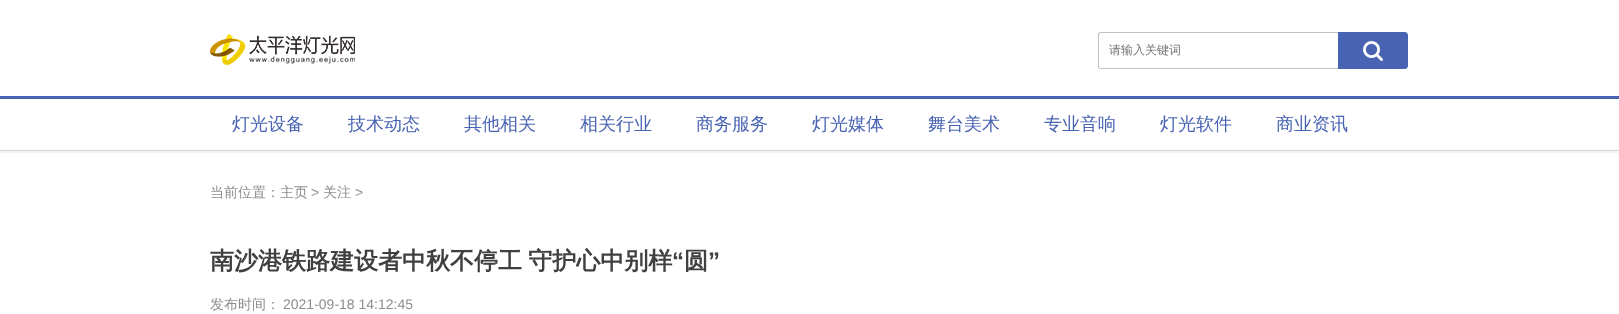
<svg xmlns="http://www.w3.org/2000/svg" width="1619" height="314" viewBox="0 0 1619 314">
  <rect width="100%" height="100%" fill="rgb(255,255,255)"/>
  <image x="210" y="34" width="145" height="31" href="pic1.png"/>
  <path d="M1101 32H1338V69H1101C1099 69 1098 68 1098 66V35C1098 33 1099 32 1101 32ZM1101 33H1338V68H1101C1100 68 1099 67 1099 66V35C1099 34 1100 33 1101 33Z" fill="rgb(193,193,193)" fill-rule="evenodd"/>
  <text x="1109" y="54" font-family="WenQuanYi Zen Hei" font-size="12" font-weight="500" fill="rgb(117,117,117)">请输入关键词</text>
  <path d="M1338 32H1405C1406.5 32 1408 33.5 1408 35V66C1408 67.5 1406.5 69 1405 69H1338Z" fill="rgb(71,99,178)"/>
  <image x="1363" y="41" width="20" height="20" href="pic2.png"/>
  <rect x="0" y="151" width="1619" height="2" fill="rgb(243,243,243)"/>
  <rect x="0" y="96" width="1619" height="3" fill="rgb(71,99,178)"/>
  <rect x="0" y="150" width="1619" height="1" fill="rgb(217,217,217)"/>
  <g font-family="WenQuanYi Zen Hei" font-size="18" font-weight="500" fill="rgb(71,99,178)">
    <text x="232" y="130">灯光设备</text>
    <text x="348" y="130">技术动态</text>
    <text x="464" y="130">其他相关</text>
    <text x="580" y="130">相关行业</text>
    <text x="696" y="130">商务服务</text>
    <text x="812" y="130">灯光媒体</text>
    <text x="928" y="130">舞台美术</text>
    <text x="1044" y="130">专业音响</text>
    <text x="1160" y="130">灯光软件</text>
    <text x="1276" y="130">商业资讯</text>
  </g>
  <text x="210" y="197" font-family="WenQuanYi Zen Hei" font-size="14" font-weight="500" fill="rgb(141,141,141)">当前位置：主页</text>
  <text x="311" y="197" font-family="Liberation Sans" font-size="14" fill="rgb(141,141,141)">&gt;</text>
  <text x="323" y="197" font-family="WenQuanYi Zen Hei" font-size="14" font-weight="500" fill="rgb(141,141,141)">关注</text>
  <text x="355" y="197" font-family="Liberation Sans" font-size="14" fill="rgb(141,141,141)">&gt;</text>
  <text x="210" y="269" word-spacing="-1" font-family="WenQuanYi Zen Hei" font-size="24" font-weight="bold" fill="rgb(64,64,64)">南沙港铁路建设者中秋不停工 守护心中别样</text>
  <text x="672" y="269" font-family="Liberation Sans" font-size="24" font-weight="bold" fill="rgb(64,64,64)">“</text>
  <text x="684" y="269" font-family="WenQuanYi Zen Hei" font-size="24" font-weight="bold" fill="rgb(64,64,64)">圆</text>
  <text x="708" y="269" font-family="Liberation Sans" font-size="24" font-weight="bold" fill="rgb(64,64,64)">”</text>
  <text x="210" y="309" font-family="WenQuanYi Zen Hei" font-size="14" font-weight="500" fill="rgb(141,141,141)">发布时间：</text>
  <text x="283" y="309" font-family="Liberation Sans" font-size="14" fill="rgb(141,141,141)">2021-09-18 14:12:45</text>
</svg>
